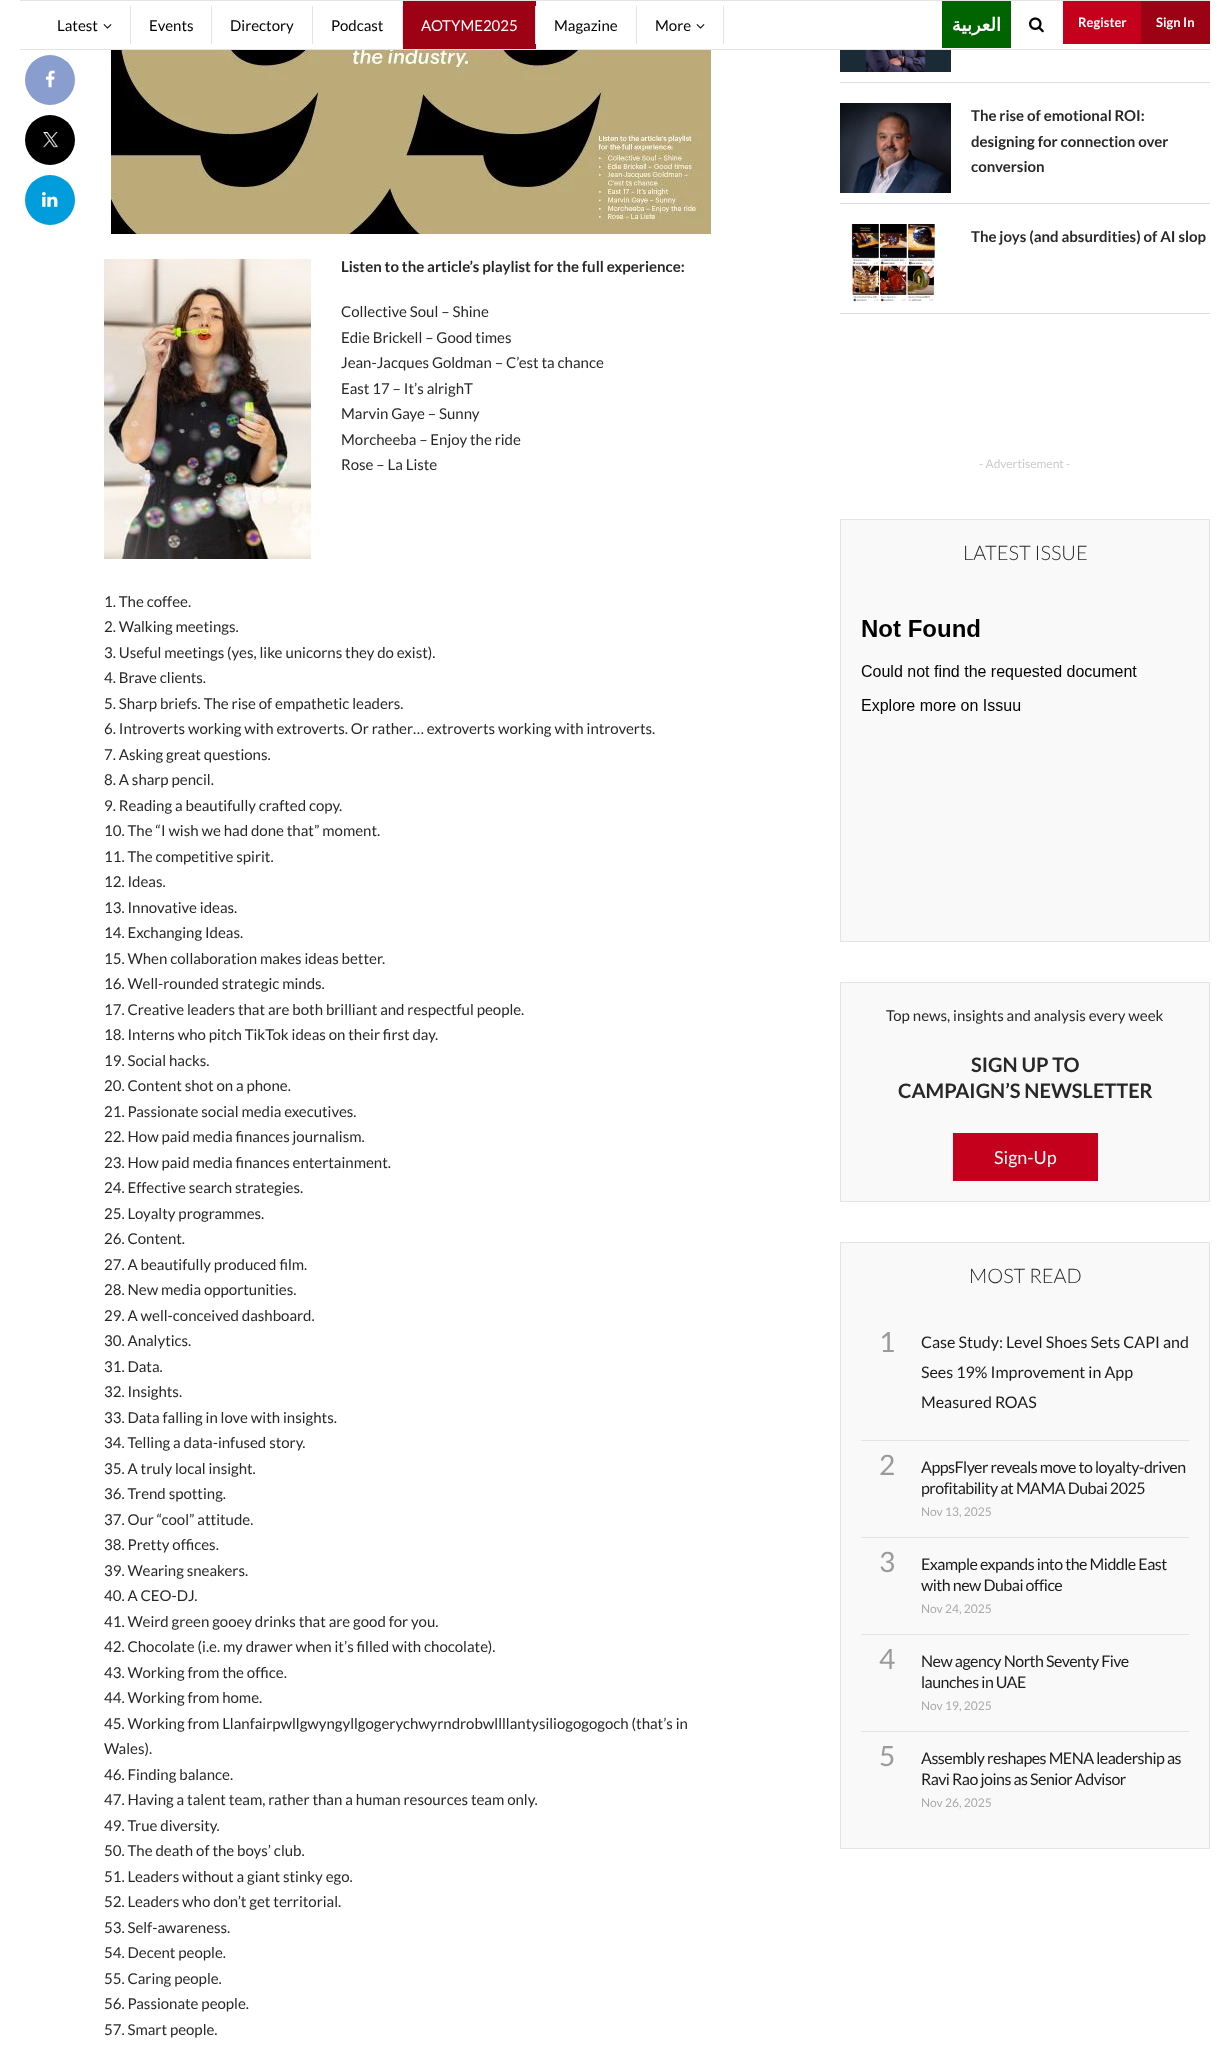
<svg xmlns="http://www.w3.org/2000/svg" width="1230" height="2054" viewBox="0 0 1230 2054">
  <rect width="100%" height="100%" fill="rgb(255,255,255)"/>
  <rect x="20" y="0" width="1190" height="1" fill="rgb(228,228,228)"/>
  <rect x="20" y="49" width="1190" height="1" fill="rgb(228,228,228)"/>
  <rect x="130" y="6" width="1" height="38" fill="rgb(228,228,228)"/>
  <text x="57" y="31" font-family="Lato" font-size="15" fill="rgb(0,0,0)">Latest</text>
  <image x="103" y="24" width="9" height="5" href="pic1.png"/>
  <rect x="211" y="6" width="1" height="38" fill="rgb(228,228,228)"/>
  <text x="149" y="31" font-family="Lato" font-size="15" fill="rgb(0,0,0)">Events</text>
  <rect x="312" y="6" width="1" height="38" fill="rgb(228,228,228)"/>
  <text x="230" y="31" font-family="Lato" font-size="15" fill="rgb(0,0,0)">Directory</text>
  <rect x="402" y="6" width="1" height="38" fill="rgb(228,228,228)"/>
  <text x="331" y="31" font-family="Lato" font-size="15" fill="rgb(0,0,0)">Podcast</text>
  <rect x="403" y="1" width="133" height="48" fill="rgb(157,1,20)"/>
  <rect x="535" y="6" width="1" height="38" fill="rgb(228,228,228)"/>
  <text x="421" y="31" font-family="Lato" font-size="15" fill="rgb(255,255,255)">AOTYME2025</text>
  <rect x="636" y="6" width="1" height="38" fill="rgb(228,228,228)"/>
  <text x="554" y="31" font-family="Lato" font-size="15" fill="rgb(0,0,0)">Magazine</text>
  <rect x="723" y="6" width="1" height="38" fill="rgb(228,228,228)"/>
  <text x="655" y="31" font-family="Lato" font-size="15" fill="rgb(0,0,0)">More</text>
  <image x="696" y="24" width="9" height="5" href="pic1.png"/>
  <rect x="942" y="1" width="69" height="47" fill="rgb(0,100,0)"/>
  <text x="1001" y="31" font-family="DejaVu Sans" font-size="18" font-weight="bold" direction="rtl" fill="rgb(255,255,255)">العربية</text>
  <image x="1029" y="17" width="15" height="16" href="pic2.png"/>
  <rect x="1063" y="1" width="78" height="43" fill="rgb(197,0,29)"/>
  <text x="1078" y="27" font-family="Lato" font-size="13" font-weight="bold" fill="rgb(255,255,255)">Register</text>
  <rect x="1141" y="1" width="69" height="43" fill="rgb(157,1,20)"/>
  <text x="1156" y="27" font-family="Lato" font-size="13" font-weight="bold" fill="rgb(255,255,255)">Sign In</text>
  <circle cx="50" cy="80" r="25" fill="rgb(137,157,206)"/>
  <image x="45" y="70" width="10" height="18" href="pic3.png"/>
  <circle cx="50" cy="140" r="25" fill="rgb(0,0,0)"/>
  <image x="42" y="132" width="16" height="16" href="pic4.png"/>
  <circle cx="50" cy="200" r="25" fill="rgb(0,156,220)"/>
  <image x="42" y="192" width="16" height="15" href="pic5.png"/>
  <image x="111" y="50" width="600" height="184" href="pic6.png"/>
  <image x="104" y="259" width="207" height="300" href="pic7.png"/>
  <text x="341" y="272" font-family="Lato" font-size="15" font-weight="bold" fill="rgb(40,40,40)">Listen to the article’s playlist for the full experience:</text>
  <g font-family="Lato" font-size="15" fill="rgb(40,40,40)">
    <text>
      <tspan x="341" y="317">Collective Soul – Shine</tspan>
      <tspan x="341" y="343">Edie Brickell – Good times</tspan>
      <tspan x="341" y="368">Jean-Jacques Goldman – C’est ta chance</tspan>
      <tspan x="341" y="394">East 17 – It’s alrighT</tspan>
      <tspan x="341" y="419">Marvin Gaye – Sunny</tspan>
      <tspan x="341" y="445">Morcheeba – Enjoy the ride</tspan>
      <tspan x="341" y="470">Rose – La Liste</tspan>
    </text>
    <text>
      <tspan x="104" y="607">1. The coffee.</tspan>
      <tspan x="104" y="632">2. Walking meetings.</tspan>
      <tspan x="104" y="658">3. Useful meetings (yes, like unicorns they do exist).</tspan>
      <tspan x="104" y="683">4. Brave clients.</tspan>
      <tspan x="104" y="709">5. Sharp briefs. The rise of empathetic leaders.</tspan>
      <tspan x="104" y="734">6. Introverts working with extroverts. Or rather… extroverts working with introverts.</tspan>
      <tspan x="104" y="760">7. Asking great questions.</tspan>
      <tspan x="104" y="785">8. A sharp pencil.</tspan>
      <tspan x="104" y="811">9. Reading a beautifully crafted copy.</tspan>
      <tspan x="104" y="836">10. The “I wish we had done that” moment.</tspan>
      <tspan x="104" y="862">11. The competitive spirit.</tspan>
      <tspan x="104" y="887">12. Ideas.</tspan>
      <tspan x="104" y="913">13. Innovative ideas.</tspan>
      <tspan x="104" y="938">14. Exchanging Ideas.</tspan>
      <tspan x="104" y="964">15. When collaboration makes ideas better.</tspan>
      <tspan x="104" y="989">16. Well-rounded strategic minds.</tspan>
      <tspan x="104" y="1015">17. Creative leaders that are both brilliant and respectful people.</tspan>
      <tspan x="104" y="1040">18. Interns who pitch TikTok ideas on their first day.</tspan>
      <tspan x="104" y="1066">19. Social hacks.</tspan>
      <tspan x="104" y="1091">20. Content shot on a phone.</tspan>
      <tspan x="104" y="1117">21. Passionate social media executives.</tspan>
      <tspan x="104" y="1142">22. How paid media finances journalism.</tspan>
      <tspan x="104" y="1168">23. How paid media finances entertainment.</tspan>
      <tspan x="104" y="1193">24. Effective search strategies.</tspan>
      <tspan x="104" y="1219">25. Loyalty programmes.</tspan>
      <tspan x="104" y="1244">26. Content.</tspan>
      <tspan x="104" y="1270">27. A beautifully produced film.</tspan>
      <tspan x="104" y="1295">28. New media opportunities.</tspan>
      <tspan x="104" y="1321">29. A well-conceived dashboard.</tspan>
      <tspan x="104" y="1346">30. Analytics.</tspan>
      <tspan x="104" y="1372">31. Data.</tspan>
      <tspan x="104" y="1397">32. Insights.</tspan>
      <tspan x="104" y="1423">33. Data falling in love with insights.</tspan>
      <tspan x="104" y="1448">34. Telling a data-infused story.</tspan>
      <tspan x="104" y="1474">35. A truly local insight.</tspan>
      <tspan x="104" y="1499">36. Trend spotting.</tspan>
      <tspan x="104" y="1525">37. Our “cool” attitude.</tspan>
      <tspan x="104" y="1550">38. Pretty offices.</tspan>
      <tspan x="104" y="1576">39. Wearing sneakers.</tspan>
      <tspan x="104" y="1601">40. A CEO-DJ.</tspan>
      <tspan x="104" y="1627">41. Weird green gooey drinks that are good for you.</tspan>
      <tspan x="104" y="1652">42. Chocolate (i.e. my drawer when it’s filled with chocolate).</tspan>
      <tspan x="104" y="1678">43. Working from the office.</tspan>
      <tspan x="104" y="1703">44. Working from home.</tspan>
      <tspan x="104" y="1729">45. Working from Llanfairpwllgwyngyllgogerychwyrndrobwllllantysiliogogogoch (that’s in</tspan>
      <tspan x="104" y="1754">Wales).</tspan>
      <tspan x="104" y="1780">46. Finding balance.</tspan>
      <tspan x="104" y="1805">47. Having a talent team, rather than a human resources team only.</tspan>
      <tspan x="104" y="1831">49. True diversity.</tspan>
      <tspan x="104" y="1856">50. The death of the boys’ club.</tspan>
      <tspan x="104" y="1882">51. Leaders without a giant stinky ego.</tspan>
      <tspan x="104" y="1907">52. Leaders who don’t get territorial.</tspan>
      <tspan x="104" y="1933">53. Self-awareness.</tspan>
      <tspan x="104" y="1958">54. Decent people.</tspan>
      <tspan x="104" y="1984">55. Caring people.</tspan>
      <tspan x="104" y="2009">56. Passionate people.</tspan>
      <tspan x="104" y="2035">57. Smart people.</tspan>
    </text>
  </g>
  <rect x="840" y="82" width="370" height="1" fill="rgb(221,221,221)"/>
  <image x="840" y="50" width="111" height="22" href="pic8.png"/>
  <rect x="840" y="203" width="370" height="1" fill="rgb(221,221,221)"/>
  <image x="840" y="103" width="111" height="90" href="pic9.png"/>
  <g font-family="Lato" font-size="15" font-weight="bold" fill="rgb(40,40,40)">
    <text>
      <tspan x="971" y="121">The rise of emotional ROI:</tspan>
      <tspan x="971" y="147">designing for connection over</tspan>
      <tspan x="971" y="172">conversion</tspan>
    </text>
  </g>
  <rect x="840" y="313" width="370" height="1" fill="rgb(221,221,221)"/>
  <image x="851" y="224" width="84" height="78" href="pic10.png"/>
  <text x="971" y="242" font-family="Lato" font-size="15" font-weight="bold" fill="rgb(40,40,40)">The joys (and absurdities) of AI slop</text>
  <text x="979" y="468" font-family="Lato" font-size="12" fill="rgb(203,203,203)">- Advertisement -</text>
  <rect x="840.5" y="519.5" width="369" height="422" fill="rgb(249,249,249)" stroke="rgb(228,228,228)"/>
  <text x="963" y="560" font-family="Lato" font-size="20" font-weight="300" fill="rgb(40,40,40)">LATEST ISSUE</text>
  <image x="861" y="619" width="276" height="95" href="pic11.png"/>
  <rect x="840.5" y="982.5" width="369" height="219" fill="rgb(249,249,249)" stroke="rgb(228,228,228)"/>
  <text x="886" y="1021" font-family="Lato" font-size="15" fill="rgb(40,40,40)">Top news, insights and analysis every week</text>
  <g font-family="Lato" font-size="20" font-weight="bold" fill="rgb(40,40,40)">
    <text x="971" y="1072">SIGN UP TO</text>
    <text x="898" y="1098">CAMPAIGN’S NEWSLETTER</text>
  </g>
  <rect x="953" y="1133" width="145" height="48" fill="rgb(197,0,29)"/>
  <text x="994" y="1164" font-family="Lato" font-size="18" fill="rgb(249,249,249)">Sign-Up</text>
  <rect x="840.5" y="1242.5" width="369" height="606" fill="rgb(249,249,249)" stroke="rgb(228,228,228)"/>
  <text x="969" y="1283" font-family="Lato" font-size="20" font-weight="300" fill="rgb(40,40,40)">MOST READ</text>
  <rect x="861" y="1440" width="328" height="1" fill="rgb(228,228,228)"/>
  <text x="879" y="1352" font-family="Lato" font-size="28" fill="rgb(155,155,155)">1</text>
  <g font-family="Lato" font-size="16" fill="rgb(28,28,28)">
    <text>
      <tspan x="921" y="1348">Case Study: Level Shoes Sets CAPI and</tspan>
      <tspan x="921" y="1378">Sees 19% Improvement in App</tspan>
      <tspan x="921" y="1408">Measured ROAS</tspan>
    </text>
  </g>
  <rect x="861" y="1537" width="328" height="1" fill="rgb(228,228,228)"/>
  <text x="879" y="1475" font-family="Lato" font-size="28" fill="rgb(155,155,155)">2</text>
  <g font-family="Lato" font-size="16" letter-spacing="-0.5" fill="rgb(28,28,28)">
    <text>
      <tspan x="921" y="1473">AppsFlyer reveals move to loyalty-driven</tspan>
      <tspan x="921" y="1494">profitability at MAMA Dubai 2025</tspan>
    </text>
  </g>
  <text x="921" y="1516" font-family="Lato" font-size="12" fill="rgb(170,170,170)">Nov 13, 2025</text>
  <rect x="861" y="1634" width="328" height="1" fill="rgb(228,228,228)"/>
  <text x="879" y="1572" font-family="Lato" font-size="28" fill="rgb(155,155,155)">3</text>
  <g font-family="Lato" font-size="16" letter-spacing="-0.5" fill="rgb(28,28,28)">
    <text>
      <tspan x="921" y="1570">Example expands into the Middle East</tspan>
      <tspan x="921" y="1591">with new Dubai office</tspan>
    </text>
  </g>
  <text x="921" y="1613" font-family="Lato" font-size="12" fill="rgb(170,170,170)">Nov 24, 2025</text>
  <rect x="861" y="1731" width="328" height="1" fill="rgb(228,228,228)"/>
  <text x="879" y="1669" font-family="Lato" font-size="28" fill="rgb(155,155,155)">4</text>
  <g font-family="Lato" font-size="16" letter-spacing="-0.5" fill="rgb(28,28,28)">
    <text>
      <tspan x="921" y="1667">New agency North Seventy Five</tspan>
      <tspan x="921" y="1688">launches in UAE</tspan>
    </text>
  </g>
  <text x="921" y="1710" font-family="Lato" font-size="12" fill="rgb(170,170,170)">Nov 19, 2025</text>
  <text x="879" y="1766" font-family="Lato" font-size="28" fill="rgb(155,155,155)">5</text>
  <g font-family="Lato" font-size="16" letter-spacing="-0.5" fill="rgb(28,28,28)">
    <text>
      <tspan x="921" y="1764">Assembly reshapes MENA leadership as</tspan>
      <tspan x="921" y="1785">Ravi Rao joins as Senior Advisor</tspan>
    </text>
  </g>
  <text x="921" y="1807" font-family="Lato" font-size="12" fill="rgb(170,170,170)">Nov 26, 2025</text>
</svg>
